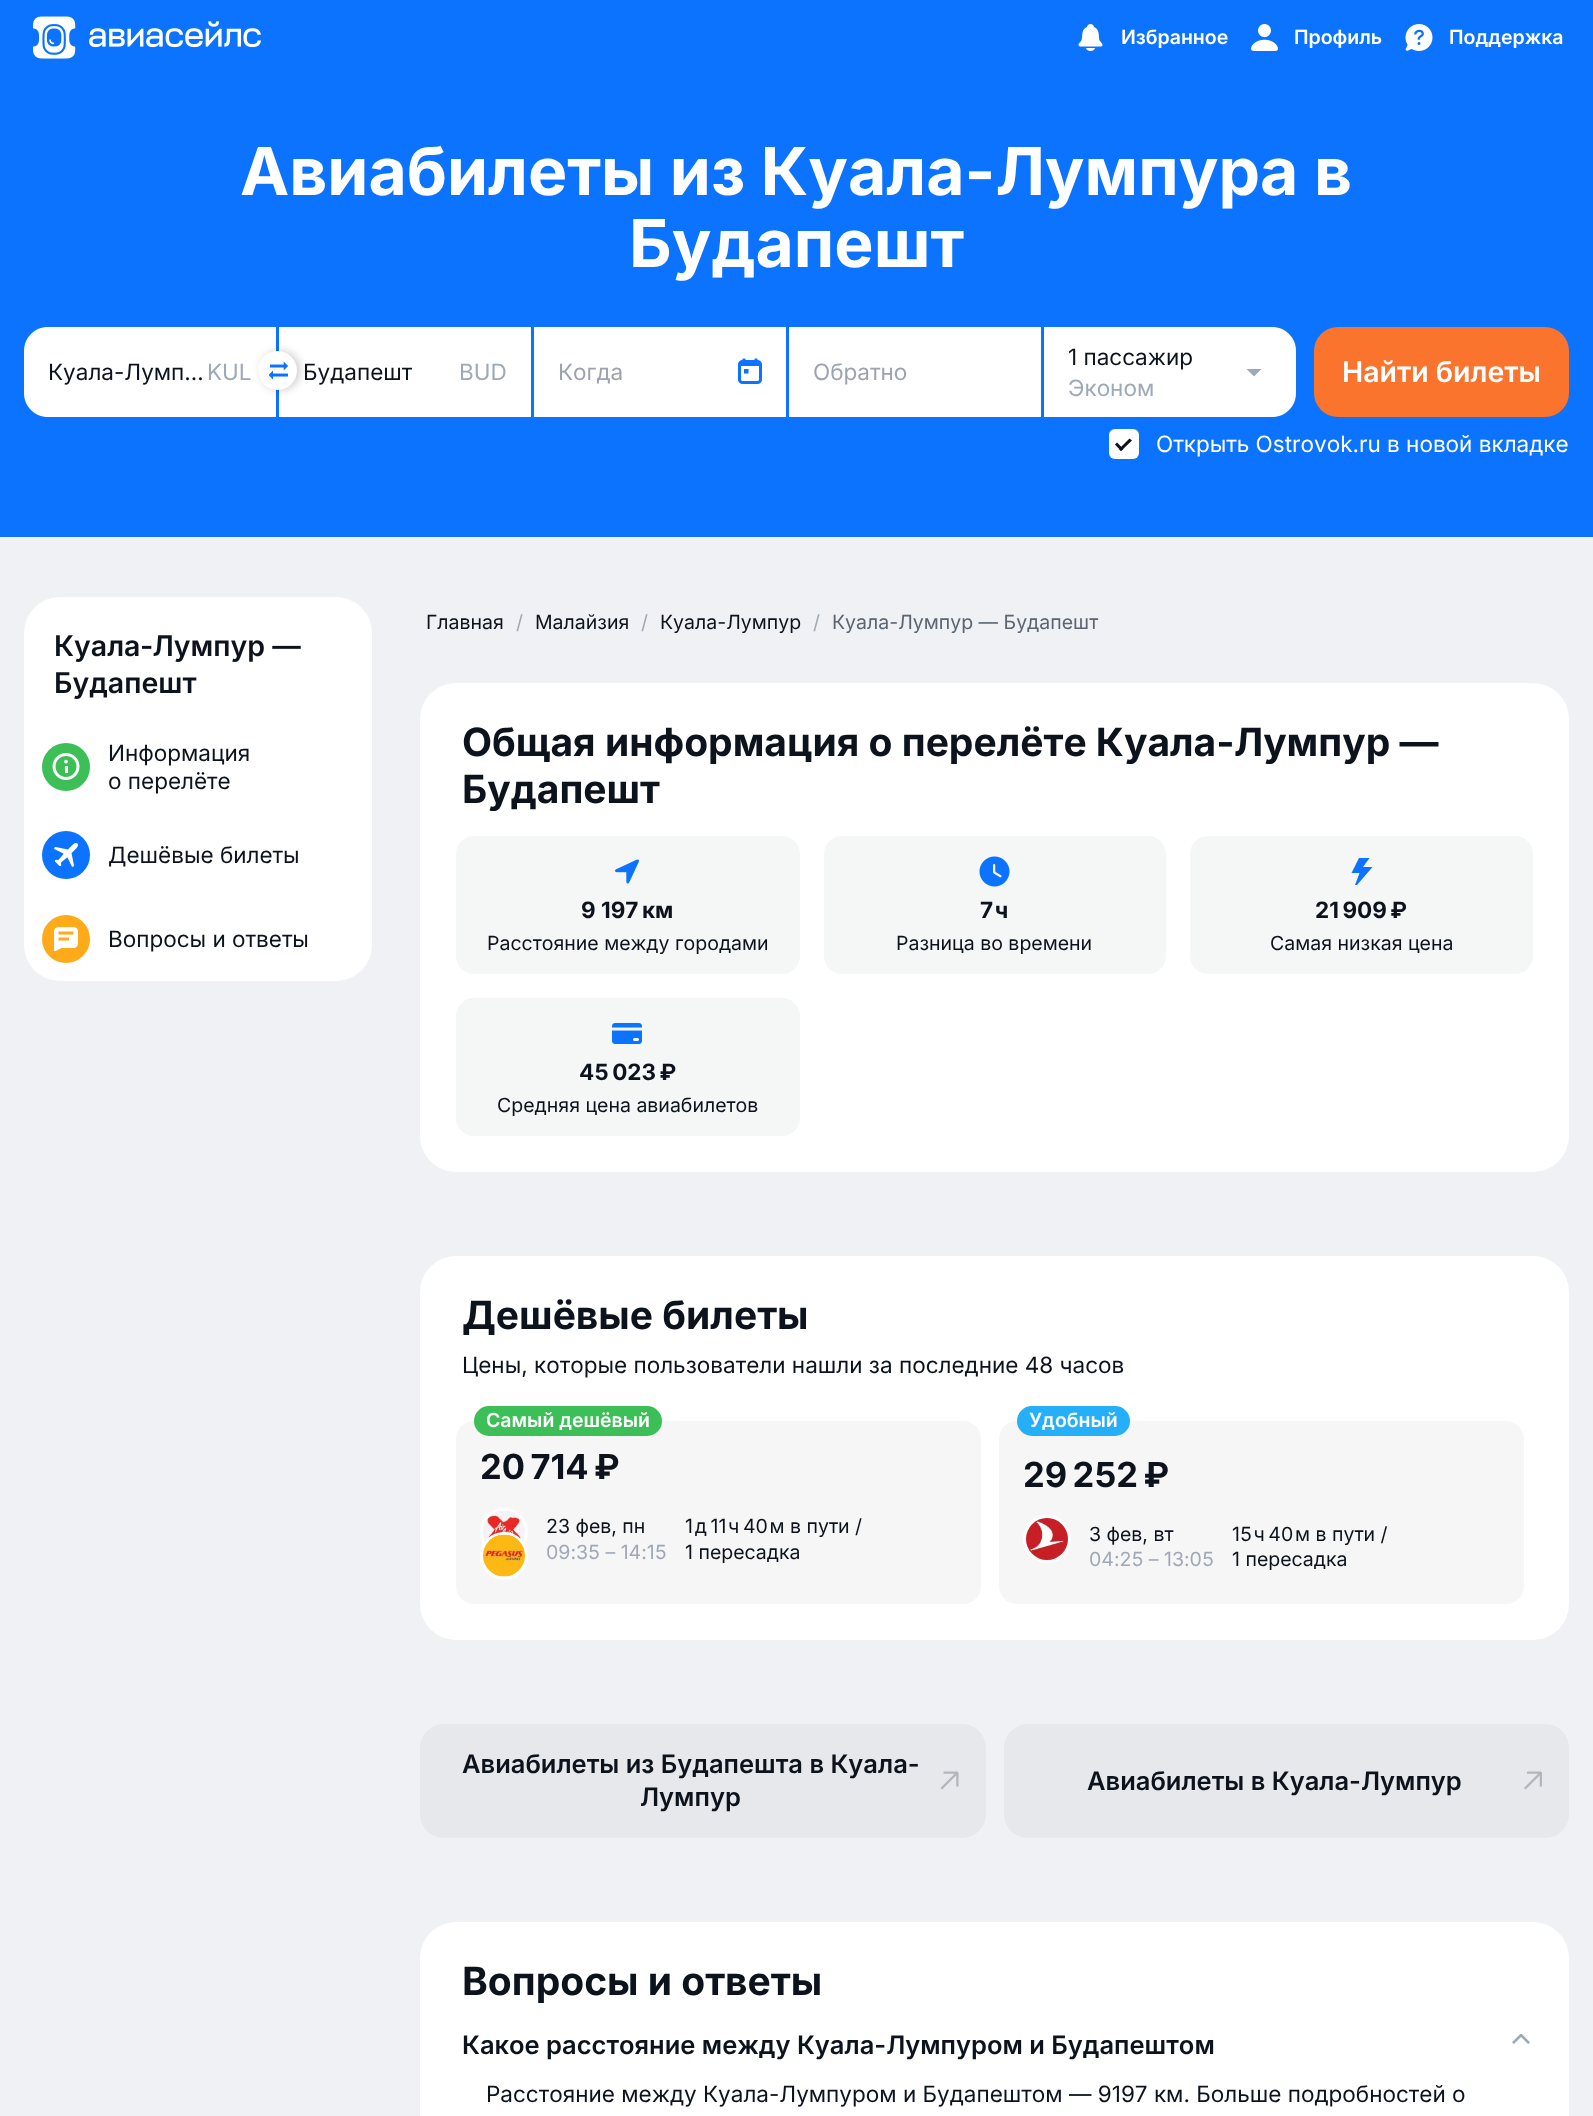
<svg xmlns="http://www.w3.org/2000/svg" width="1593" height="2116" viewBox="0 0 1593 2116">
  <style>*{font-kerning:none!important;font-variant-ligatures:none!important}</style>
  <rect width="100%" height="100%" fill="rgb(239,241,244)"/>
  <rect x="0" y="0" width="1593" height="537" fill="rgb(12,115,254)"/>
  <image x="33" y="16" width="228" height="43" href="pic1.png"/>
  <image x="1078" y="24" width="25" height="27" href="pic2.png"/>
  <text x="1121" y="44" font-family="Inter" font-size="19.5" font-weight="600" fill="rgb(255,255,255)">Избранное</text>
  <image x="1251" y="24" width="27" height="27" href="pic3.png"/>
  <text x="1294" y="44" font-family="Inter" font-size="19.5" font-weight="600" fill="rgb(255,255,255)">Профиль</text>
  <image x="1405" y="24" width="28" height="27" href="pic4.png"/>
  <text x="1449" y="44" font-family="Inter" font-size="19.5" font-weight="600" fill="rgb(255,255,255)">Поддержка</text>
  <g font-family="Inter" font-size="66" font-weight="bold" fill="rgb(255,255,255)">
    <text x="240" y="195">Авиабилеты из Куала-Лумпура в</text>
    <text x="629" y="267">Будапешт</text>
  </g>
  <path d="M48 327H276V417H48C34.5 417 24 406.5 24 393V351C24 337.5 34.5 327 48 327Z" fill="rgb(255,255,255)"/>
  <text x="48" y="380" font-family="Inter" font-size="22.5" fill="rgb(12,19,29)">Куала-Лумп…</text>
  <text x="207" y="380" font-family="Inter" font-size="22.5" fill="rgb(158,169,183)">KUL</text>
  <rect x="279" y="327" width="252" height="90" fill="rgb(255,255,255)"/>
  <rect x="261" y="351" width="39" height="39" rx="19.5" fill="rgba(0,0,0,0.2)" filter="blur(4.5px)"/>
  <circle cx="277.5" cy="370.5" r="19.5" fill="rgb(255,255,255)"/>
  <image x="270" y="362" width="18" height="9" href="pic5.png"/>
  <image x="269" y="371" width="19" height="9" href="pic6.png"/>
  <text x="303" y="380" font-family="Inter" font-size="22.5" fill="rgb(12,19,29)">Будапешт</text>
  <text x="459" y="380" font-family="Inter" font-size="22.5" fill="rgb(158,169,183)">BUD</text>
  <rect x="534" y="327" width="252" height="90" fill="rgb(255,255,255)"/>
  <text x="558" y="380" font-family="Inter" font-size="22.5" fill="rgb(156,163,175)">Когда</text>
  <image x="738" y="358" width="24" height="26" href="pic7.png"/>
  <rect x="789" y="327" width="252" height="90" fill="rgb(255,255,255)"/>
  <text x="813" y="380" font-family="Inter" font-size="22.5" fill="rgb(156,163,175)">Обратно</text>
  <path d="M1044 327H1272C1285.5 327 1296 337.5 1296 351V393C1296 406.5 1285.5 417 1272 417H1044Z" fill="rgb(255,255,255)"/>
  <text x="1068" y="365" font-family="Inter" font-size="22.5" fill="rgb(12,19,29)">1 пассажир</text>
  <path d="M1246.5 369L1254 376.5L1261.5 369Z" fill="rgb(158,169,183)" fill-rule="evenodd"/>
  <text x="1068" y="396" font-family="Inter" font-size="22.5" fill="rgb(158,169,183)">Эконом</text>
  <rect x="1314" y="327" width="255" height="90" rx="24" fill="rgb(250,116,45)"/>
  <text x="1342" y="382" font-family="Inter" font-size="28.5" font-weight="600" fill="rgb(255,255,255)">Найти билеты</text>
  <rect x="1109" y="429" width="30" height="30" rx="6" fill="rgb(255,255,255)"/>
  <path d="M1129.5 438.5L1132 440.5L1121 451L1119 449Z" fill="rgb(12,19,29)"/>
  <path d="M1117 442.5L1123.5 449L1121 451L1115 444.5Z" fill="rgb(12,19,29)"/>
  <text x="1156" y="452" font-family="Inter" font-size="22.5" fill="rgb(255,255,255)">Открыть Ostrovok.ru в новой вкладке</text>
  <rect x="24" y="597" width="348" height="384" rx="36" fill="rgb(255,255,255)"/>
  <g font-family="Inter" font-size="28.5" font-weight="600" fill="rgb(12,19,29)">
    <text>
      <tspan x="54" y="656">Куала‑Лумпур —</tspan>
      <tspan x="54" y="693">Будапешт</tspan>
    </text>
  </g>
  <circle cx="66" cy="767" r="24" fill="rgb(59,191,86)"/>
  <image x="52" y="753" width="28" height="27" href="pic8.png"/>
  <g font-family="Inter" font-size="22.5" fill="rgb(12,19,29)">
    <text>
      <tspan x="108" y="761">Информация</tspan>
      <tspan x="108" y="789">о перелёте</tspan>
    </text>
  </g>
  <circle cx="66" cy="855" r="24" fill="rgb(12,115,254)"/>
  <image x="54" y="843" width="24" height="24" href="pic9.png"/>
  <text x="108" y="863" font-family="Inter" font-size="22.5" fill="rgb(12,19,29)">Дешёвые билеты</text>
  <circle cx="66" cy="939" r="24" fill="rgb(255,170,24)"/>
  <image x="54" y="927" width="24" height="24" href="pic10.png"/>
  <text x="108" y="947" font-family="Inter" font-size="22.5" fill="rgb(12,19,29)">Вопросы и ответы</text>
  <text x="426" y="629" font-family="Inter" font-size="19.5" fill="rgb(12,19,29)">Главная</text>
  <text x="516" y="629" font-family="Inter" font-size="19.5" fill="rgb(158,169,183)">/</text>
  <text x="535" y="629" font-family="Inter" font-size="19.5" fill="rgb(12,19,29)">Малайзия</text>
  <text x="641" y="629" font-family="Inter" font-size="19.5" fill="rgb(158,169,183)">/</text>
  <text x="660" y="629" font-family="Inter" font-size="19.5" fill="rgb(12,19,29)">Куала-Лумпур</text>
  <text x="813" y="629" font-family="Inter" font-size="19.5" fill="rgb(158,169,183)">/</text>
  <text x="832" y="629" font-family="Inter" font-size="19.5" fill="rgb(90,100,114)">Куала-Лумпур — Будапешт</text>
  <rect x="420" y="683" width="1149" height="489" rx="36" fill="rgb(255,255,255)"/>
  <g font-family="Inter" font-size="39" font-weight="bold" fill="rgb(12,19,29)">
    <text>
      <tspan x="462" y="756">Общая информация о перелёте Куала‑Лумпур —</tspan>
      <tspan x="462" y="803">Будапешт</tspan>
    </text>
  </g>
  <rect x="456" y="836" width="344" height="138" rx="18" fill="rgb(245,246,246)"/>
  <image x="615" y="859" width="24" height="25" href="pic11.png"/>
  <text x="581" y="918" font-family="Inter" font-size="22.5" font-weight="bold" fill="rgb(12,19,29)">9 197 км</text>
  <text x="487" y="950" font-family="Inter" font-size="19.5" fill="rgb(12,19,29)">Расстояние между городами</text>
  <rect x="824" y="836" width="342" height="138" rx="18" fill="rgb(245,246,246)"/>
  <image x="979" y="856" width="31" height="31" href="pic12.png"/>
  <text x="980" y="918" font-family="Inter" font-size="22.5" font-weight="bold" fill="rgb(12,19,29)">7 ч</text>
  <text x="896" y="950" font-family="Inter" font-size="19.5" fill="rgb(12,19,29)">Разница во времени</text>
  <rect x="1190" y="836" width="343" height="138" rx="18" fill="rgb(245,246,246)"/>
  <path d="M1369.5 858H1359L1351.5 873H1359.5L1355 885H1357L1372.5 867H1363Z" fill="rgb(12,115,254)"/>
  <text x="1315" y="918" font-family="Inter" font-size="22.5" font-weight="bold" fill="rgb(12,19,29)">21 909 ₽</text>
  <text x="1270" y="950" font-family="Inter" font-size="19.5" fill="rgb(12,19,29)">Самая низкая цена</text>
  <rect x="456" y="998" width="344" height="138" rx="18" fill="rgb(245,246,246)"/>
  <image x="612" y="1023" width="30" height="21" href="pic13.png"/>
  <text x="579" y="1080" font-family="Inter" font-size="22.5" font-weight="bold" fill="rgb(12,19,29)">45 023 ₽</text>
  <text x="497" y="1112" font-family="Inter" font-size="19.5" fill="rgb(12,19,29)">Средняя цена авиабилетов</text>
  <rect x="420" y="1256" width="1149" height="384" rx="36" fill="rgb(255,255,255)"/>
  <text x="462" y="1329" font-family="Inter" font-size="39" font-weight="bold" fill="rgb(12,19,29)">Дешёвые билеты</text>
  <text x="462" y="1373" font-family="Inter" font-size="22.5" fill="rgb(12,19,29)">Цены, которые пользователи нашли за последние 48 часов</text>
  <rect x="456" y="1421" width="525" height="183" rx="18" fill="rgb(246,246,246)"/>
  <rect x="474" y="1406" width="188" height="30" rx="15" fill="rgb(59,191,86)"/>
  <text x="486" y="1427" font-family="Inter" font-size="19.5" font-weight="600" fill="rgb(255,255,255)">Самый дешёвый</text>
  <text x="480" y="1479" font-family="Inter" font-size="34.5" font-weight="bold" fill="rgb(12,19,29)">20 714 ₽</text>
  <circle cx="504" cy="1532" r="22.5" fill="none" stroke="rgb(255,255,255)" stroke-width="3"/>
  <image x="483" y="1511" width="42" height="33" href="pic14.png"/>
  <circle cx="504" cy="1556" r="22.5" fill="none" stroke="rgb(255,255,255)" stroke-width="3"/>
  <image x="483" y="1534" width="42" height="43" href="pic15.png"/>
  <text x="546" y="1533" font-family="Inter" font-size="19.5" fill="rgb(12,19,29)">23 фев, пн</text>
  <text x="546" y="1559" font-family="Inter" font-size="19.5" fill="rgb(158,169,183)">09:35 – 14:15</text>
  <g font-family="Inter" font-size="19.5" fill="rgb(12,19,29)">
    <text>
      <tspan x="685" y="1533">1 д 11 ч 40 м в пути /</tspan>
      <tspan x="685" y="1559">1 пересадка</tspan>
    </text>
  </g>
  <rect x="999" y="1421" width="525" height="183" rx="18" fill="rgb(246,246,246)"/>
  <rect x="1017" y="1406" width="113" height="30" rx="15" fill="rgb(37,175,248)"/>
  <text x="1029" y="1427" font-family="Inter" font-size="19.5" font-weight="600" fill="rgb(255,255,255)">Удобный</text>
  <text x="1023" y="1487" font-family="Inter" font-size="34.5" font-weight="bold" fill="rgb(12,19,29)">29 252 ₽</text>
  <circle cx="1047" cy="1539" r="22.5" fill="none" stroke="rgb(255,255,255)" stroke-width="3"/>
  <image x="1026" y="1518" width="42" height="42" href="pic16.png"/>
  <text x="1089" y="1541" font-family="Inter" font-size="19.5" fill="rgb(12,19,29)">3 фев, вт</text>
  <text x="1089" y="1566" font-family="Inter" font-size="19.5" fill="rgb(158,169,183)">04:25 – 13:05</text>
  <g font-family="Inter" font-size="19.5" fill="rgb(12,19,29)">
    <text>
      <tspan x="1232" y="1541">15 ч 40 м в пути /</tspan>
      <tspan x="1232" y="1566">1 пересадка</tspan>
    </text>
  </g>
  <rect x="420" y="1724" width="566" height="114" rx="24" fill="rgb(230,232,235)"/>
  <g font-family="Inter" font-size="25.5" font-weight="600" fill="rgb(12,19,29)">
    <text x="462" y="1773">Авиабилеты из Будапешта в Куала-</text>
    <text x="640" y="1806">Лумпур</text>
  </g>
  <image x="940" y="1771" width="19" height="19" href="pic17.png"/>
  <rect x="1004" y="1724" width="565" height="114" rx="24" fill="rgb(230,232,235)"/>
  <text x="1087" y="1790" font-family="Inter" font-size="25.5" font-weight="600" fill="rgb(12,19,29)">Авиабилеты в Куала-Лумпур</text>
  <image x="1524" y="1771" width="18" height="19" href="pic18.png"/>
  <rect x="420" y="1922" width="1149" height="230" rx="36" fill="rgb(255,255,255)"/>
  <text x="462" y="1995" font-family="Inter" font-size="39" font-weight="bold" fill="rgb(12,19,29)">Вопросы и ответы</text>
  <text x="462" y="2054" font-family="Inter" font-size="25.5" font-weight="600" fill="rgb(12,19,29)">Какое расстояние между Куала-Лумпуром и Будапештом</text>
  <image x="1512" y="2034" width="18" height="10" href="pic19.png"/>
  <text x="486" y="2102" font-family="Inter" font-size="22.5" fill="rgb(12,19,29)">Расстояние между Куала-Лумпуром и Будапештом — 9197 км. Больше подробностей о</text>
</svg>
